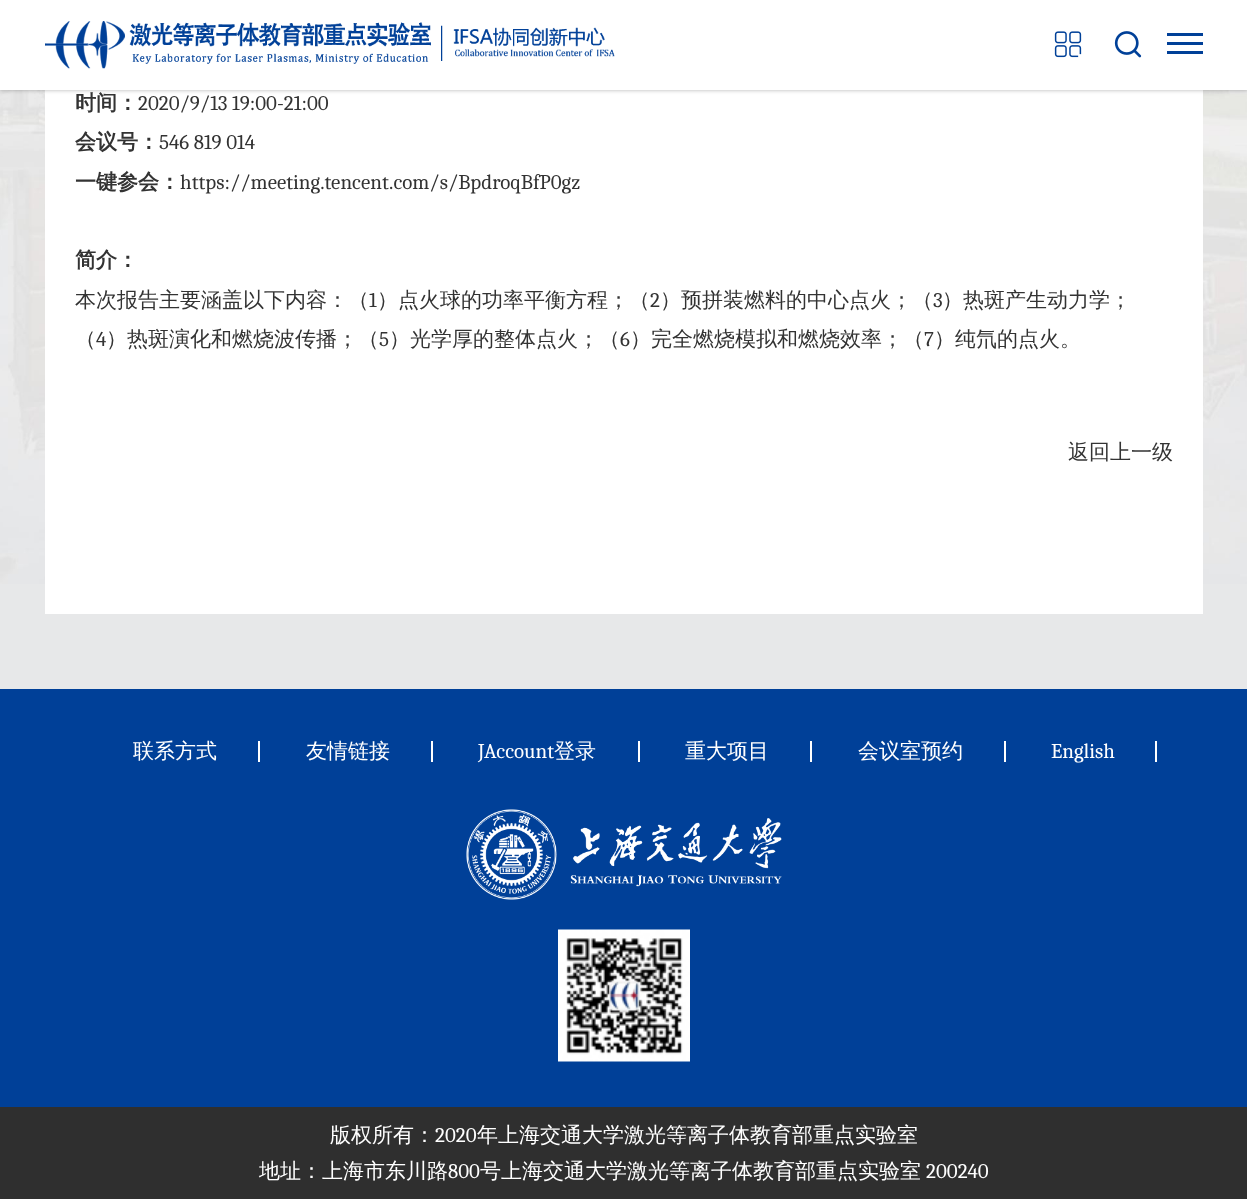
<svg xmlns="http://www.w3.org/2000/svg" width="1247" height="1199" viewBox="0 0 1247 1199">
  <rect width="100%" height="100%" fill="rgb(231,232,233)"/>
  <image x="0" y="90" width="1247" height="494" href="pic1.png"/>
  <rect x="45" y="90" width="1158" height="524" fill="rgb(255,255,255)"/>
  <rect x="0" y="0" width="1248" height="90" fill="rgba(0,0,0,0.3)" filter="blur(2px)"/>
  <rect x="0" y="0" width="1247" height="90" fill="rgb(255,255,255)"/>
  <image x="45" y="21" width="570" height="48" href="pic2.png"/>
  <image x="1054" y="31" width="28" height="27" href="pic3.png"/>
  <image x="1114" y="31" width="28" height="27" href="pic4.png"/>
  <rect x="1167" y="42" width="36" height="3" fill="rgb(0,64,152)"/>
  <rect x="1167" y="33" width="36" height="3" fill="rgb(0,64,152)"/>
  <rect x="1167" y="51" width="36" height="3" fill="rgb(0,64,152)"/>
  <text x="75" y="110" font-family="WenQuanYi Zen Hei" font-size="21" font-weight="bold" fill="rgb(51,51,51)">时间：</text>
  <text x="138" y="110" font-family="Caladea" font-size="21" fill="rgb(51,51,51)">2020/9/13 19:00-21:00</text>
  <text x="75" y="149" font-family="WenQuanYi Zen Hei" font-size="21" font-weight="bold" fill="rgb(51,51,51)">会议号：</text>
  <text x="159" y="149" font-family="Caladea" font-size="21" fill="rgb(51,51,51)">546 819 014</text>
  <text x="75" y="189" font-family="WenQuanYi Zen Hei" font-size="21" font-weight="bold" fill="rgb(51,51,51)">一键参会：</text>
  <text x="180" y="189" font-family="Caladea" font-size="21" fill="rgb(51,51,51)">https://meeting.tencent.com/s/BpdroqBfP0gz</text>
  <text x="75" y="267" font-family="WenQuanYi Zen Hei" font-size="21" font-weight="bold" fill="rgb(51,51,51)">简介：</text>
  <text x="75" y="307" font-family="WenQuanYi Zen Hei" font-size="21" font-weight="500" fill="rgb(51,51,51)">本次报告主要涵盖以下内容：（</text>
  <text x="369" y="307" font-family="Caladea" font-size="21" fill="rgb(51,51,51)">1</text>
  <text x="377" y="307" font-family="WenQuanYi Zen Hei" font-size="21" font-weight="500" fill="rgb(51,51,51)">）点火球的功率平衡方程；（</text>
  <text x="650" y="307" font-family="Caladea" font-size="21" fill="rgb(51,51,51)">2</text>
  <text x="660" y="307" font-family="WenQuanYi Zen Hei" font-size="21" font-weight="500" fill="rgb(51,51,51)">）预拼装燃料的中心点火；（</text>
  <text x="933" y="307" font-family="Caladea" font-size="21" fill="rgb(51,51,51)">3</text>
  <g font-family="WenQuanYi Zen Hei" font-size="21" font-weight="500" fill="rgb(51,51,51)">
    <text x="942" y="307">）热斑产生动力学；</text>
    <text x="75" y="346">（</text>
  </g>
  <text x="96" y="346" font-family="Caladea" font-size="21" fill="rgb(51,51,51)">4</text>
  <text x="106" y="346" font-family="WenQuanYi Zen Hei" font-size="21" font-weight="500" fill="rgb(51,51,51)">）热斑演化和燃烧波传播；（</text>
  <text x="379" y="346" font-family="Caladea" font-size="21" fill="rgb(51,51,51)">5</text>
  <text x="389" y="346" font-family="WenQuanYi Zen Hei" font-size="21" font-weight="500" fill="rgb(51,51,51)">）光学厚的整体点火；（</text>
  <text x="620" y="346" font-family="Caladea" font-size="21" fill="rgb(51,51,51)">6</text>
  <text x="630" y="346" font-family="WenQuanYi Zen Hei" font-size="21" font-weight="500" fill="rgb(51,51,51)">）完全燃烧模拟和燃烧效率；（</text>
  <text x="924" y="346" font-family="Caladea" font-size="21" fill="rgb(51,51,51)">7</text>
  <g font-family="WenQuanYi Zen Hei" font-size="21" font-weight="500" fill="rgb(51,51,51)">
    <text x="934" y="346">）纯氘的点火。</text>
    <text x="1068" y="459">返回上一级</text>
  </g>
  <rect x="0" y="689" width="1247" height="418" fill="rgb(0,64,152)"/>
  <text x="133" y="758" font-family="WenQuanYi Zen Hei" font-size="21" font-weight="500" fill="rgb(255,255,255)">联系方式</text>
  <rect x="258" y="741" width="2" height="21" fill="rgb(255,255,255)"/>
  <text x="306" y="758" font-family="WenQuanYi Zen Hei" font-size="21" font-weight="500" fill="rgb(255,255,255)">友情链接</text>
  <rect x="431" y="741" width="2" height="21" fill="rgb(255,255,255)"/>
  <text x="478" y="758" font-family="Caladea" font-size="21" fill="rgb(255,255,255)">JAccount</text>
  <text x="554" y="758" font-family="WenQuanYi Zen Hei" font-size="21" font-weight="500" fill="rgb(255,255,255)">登录</text>
  <rect x="638" y="741" width="2" height="21" fill="rgb(255,255,255)"/>
  <text x="685" y="758" font-family="WenQuanYi Zen Hei" font-size="21" font-weight="500" fill="rgb(255,255,255)">重大项目</text>
  <rect x="810" y="741" width="2" height="21" fill="rgb(255,255,255)"/>
  <text x="858" y="758" font-family="WenQuanYi Zen Hei" font-size="21" font-weight="500" fill="rgb(255,255,255)">会议室预约</text>
  <rect x="1004" y="741" width="2" height="21" fill="rgb(255,255,255)"/>
  <text x="1051" y="758" font-family="Caladea" font-size="21" fill="rgb(255,255,255)">English</text>
  <rect x="1155" y="741" width="2" height="21" fill="rgb(255,255,255)"/>
  <image x="466" y="809" width="316" height="91" href="pic5.png"/>
  <image x="558" y="929" width="132" height="133" href="pic6.png"/>
  <rect x="0" y="1107" width="1247" height="92" fill="rgb(47,47,47)"/>
  <text x="330" y="1142" font-family="WenQuanYi Zen Hei" font-size="21" font-weight="500" fill="rgb(255,255,255)">版权所有：</text>
  <text x="435" y="1142" font-family="Caladea" font-size="21" fill="rgb(255,255,255)">2020</text>
  <g font-family="WenQuanYi Zen Hei" font-size="21" font-weight="500" fill="rgb(255,255,255)">
    <text x="477" y="1142">年上海交通大学激光等离子体教育部重点实验室</text>
    <text x="259" y="1178">地址：上海市东川路</text>
  </g>
  <text x="448" y="1178" font-family="Caladea" font-size="21" fill="rgb(255,255,255)">800</text>
  <text x="480" y="1178" font-family="WenQuanYi Zen Hei" font-size="21" font-weight="500" fill="rgb(255,255,255)">号上海交通大学激光等离子体教育部重点实验室</text>
  <text x="926" y="1178" font-family="Caladea" font-size="21" fill="rgb(255,255,255)">200240</text>
</svg>
